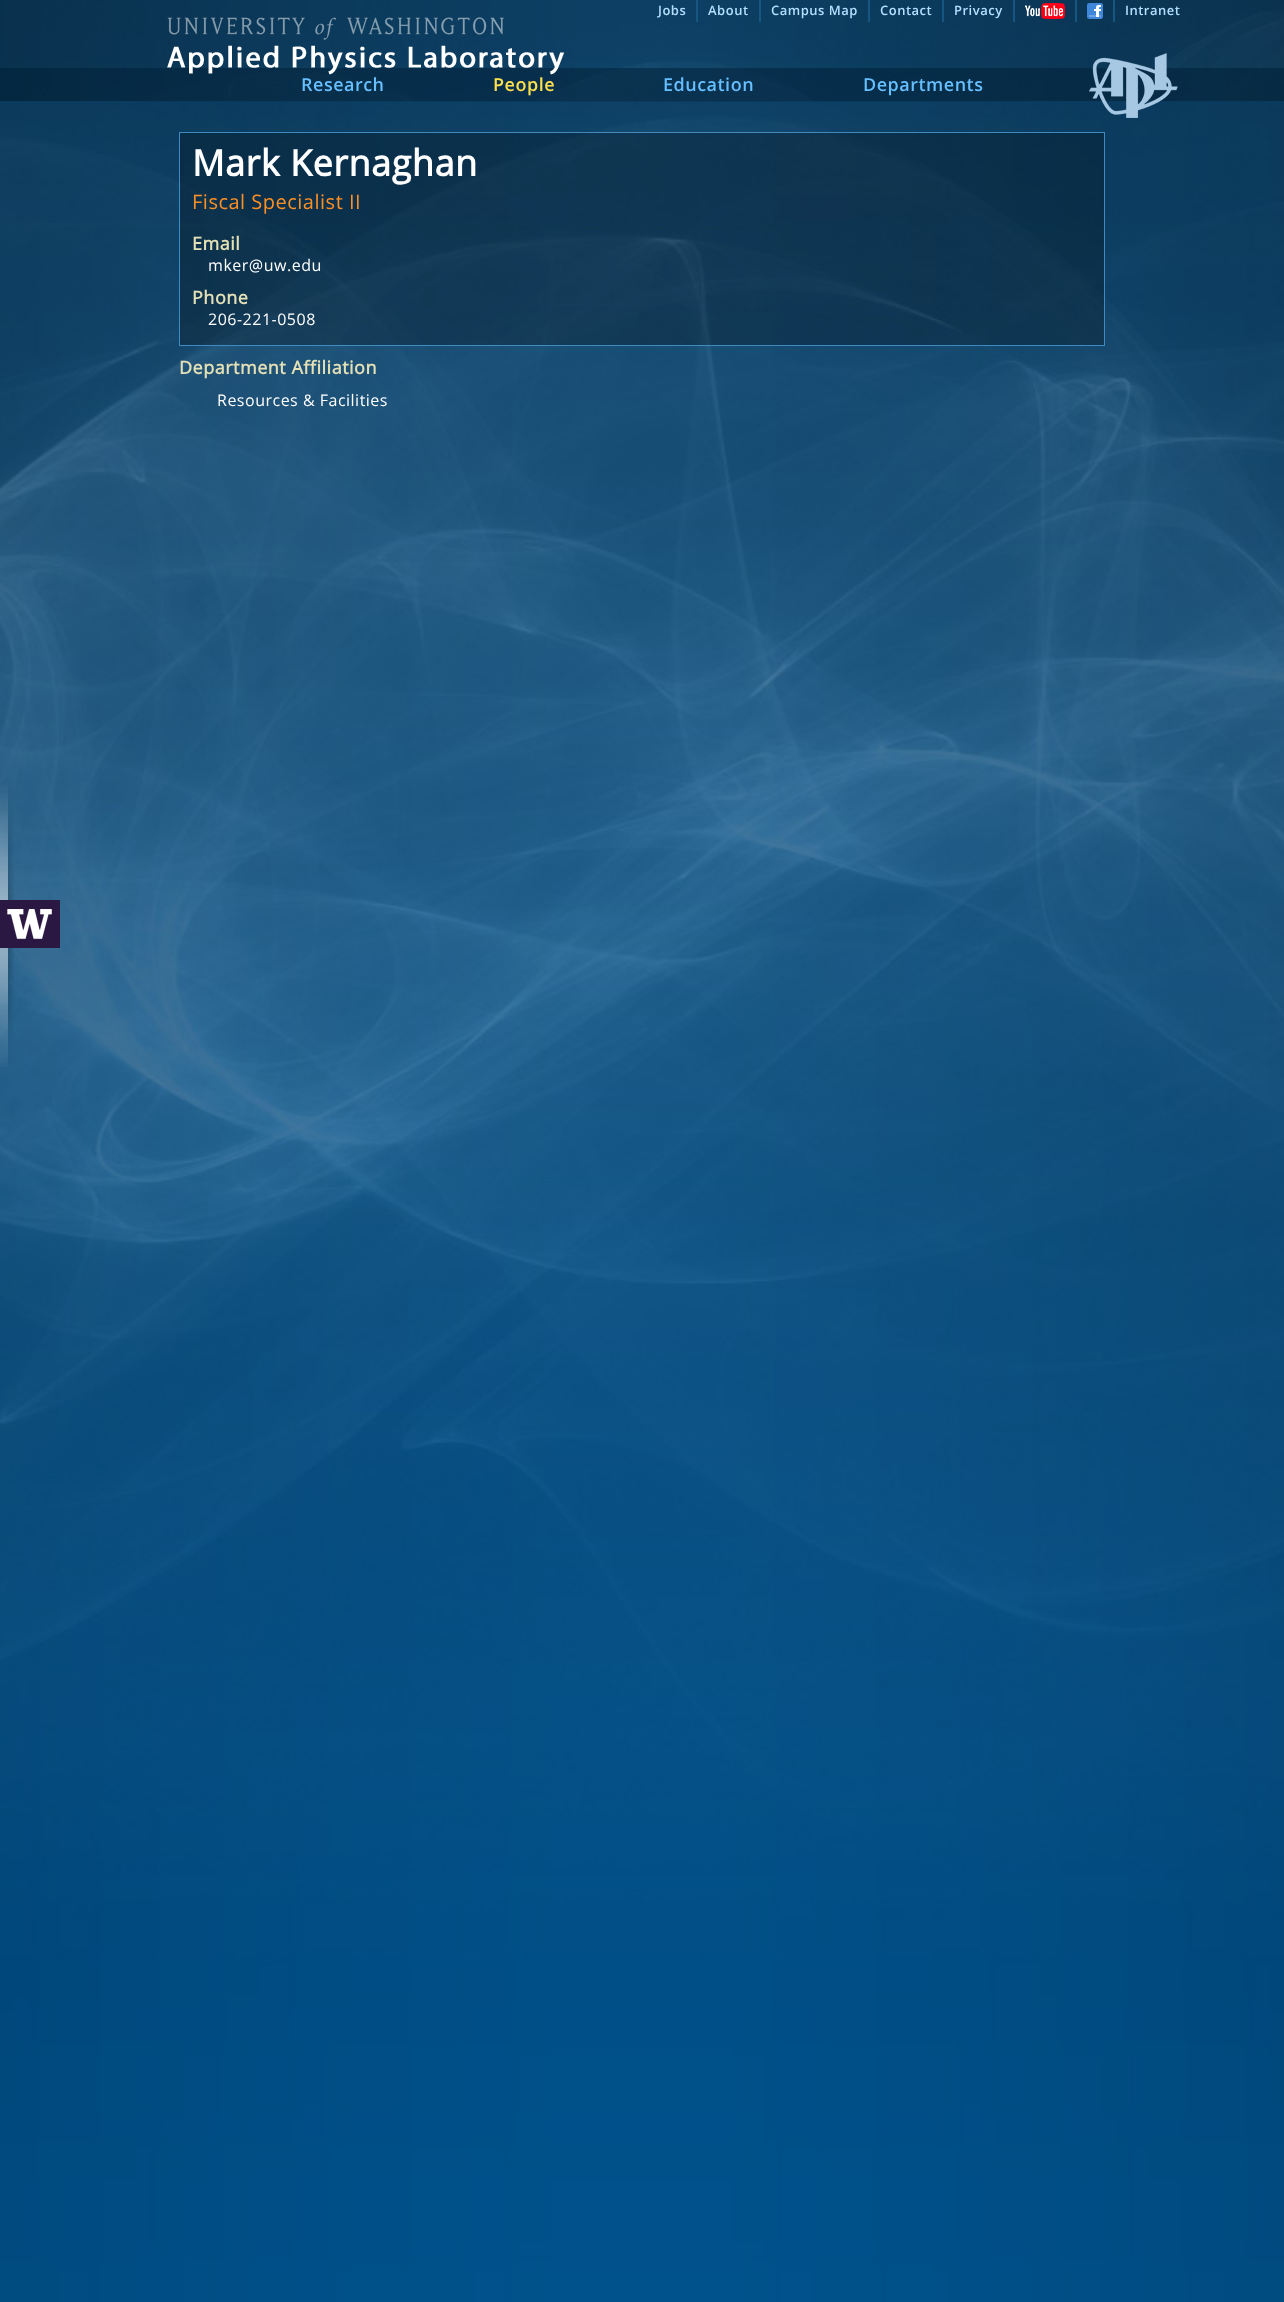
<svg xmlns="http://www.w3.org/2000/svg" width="1284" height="2302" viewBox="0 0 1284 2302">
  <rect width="100%" height="100%" fill="rgb(255,255,255)"/>
  <image x="0" y="102" width="1284" height="2200" href="pic1.png"/>
  <image x="0" y="0" width="1284" height="101" href="pic4.png"/>
  <text x="658" y="15" font-family="Open Sans" font-size="13" font-weight="600" letter-spacing="0.5" fill="rgb(179,223,255)">Jobs</text>
  <rect x="696" y="0" width="2" height="22" fill="rgb(23,85,130)"/>
  <text x="708" y="15" font-family="Open Sans" font-size="13" font-weight="600" letter-spacing="0.5" fill="rgb(179,223,255)">About</text>
  <rect x="759" y="0" width="2" height="22" fill="rgb(23,85,130)"/>
  <text x="771" y="15" font-family="Open Sans" font-size="13" font-weight="600" letter-spacing="0.5" fill="rgb(179,223,255)">Campus Map</text>
  <rect x="868" y="0" width="2" height="22" fill="rgb(23,85,130)"/>
  <text x="880" y="15" font-family="Open Sans" font-size="13" font-weight="600" letter-spacing="0.5" fill="rgb(179,223,255)">Contact</text>
  <rect x="942" y="0" width="2" height="22" fill="rgb(23,85,130)"/>
  <text x="954" y="15" font-family="Open Sans" font-size="13" font-weight="600" letter-spacing="0.5" fill="rgb(179,223,255)">Privacy</text>
  <rect x="1013" y="0" width="2" height="22" fill="rgb(23,85,130)"/>
  <image x="1025" y="3" width="40" height="16" href="pic2.png"/>
  <rect x="1075" y="0" width="2" height="22" fill="rgb(23,85,130)"/>
  <image x="1087" y="3" width="16" height="16" href="pic3.png"/>
  <rect x="1113" y="0" width="2" height="22" fill="rgb(23,85,130)"/>
  <text x="1125" y="15" font-family="Open Sans" font-size="13" font-weight="600" letter-spacing="0.5" fill="rgb(179,223,255)">Intranet</text>
  <rect x="0" y="68" width="1284" height="33" fill="rgba(0,30,51,0.5)"/>
  <image x="167" y="17" width="397" height="58" href="pic5.png"/>
  <rect x="0" y="101" width="1284" height="1" fill="rgb(8,58,94)"/>
  <text x="301" y="91" font-family="Open Sans" font-size="18" font-weight="600" letter-spacing="0.5" fill="rgb(102,191,255)">Research</text>
  <text x="493" y="91" font-family="Open Sans" font-size="18" font-weight="600" letter-spacing="0.5" fill="rgb(255,225,77)">People</text>
  <g font-family="Open Sans" font-size="18" font-weight="600" letter-spacing="0.5" fill="rgb(102,191,255)">
    <text x="663" y="91">Education</text>
    <text x="863" y="91">Departments</text>
  </g>
  <image x="1089" y="53" width="89" height="65" href="pic6.png"/>
  <rect x="179.5" y="132.5" width="925" height="213" fill="rgba(0,0,0,0.25)" stroke="rgb(64,138,191)"/>
  <text x="192" y="176" font-family="Open Sans" font-size="36" font-weight="bold" letter-spacing="0.5" fill="rgb(255,255,255)">Mark Kernaghan</text>
  <text x="192" y="209" font-family="Open Sans" font-size="20" letter-spacing="0.5" fill="rgb(253,144,37)">Fiscal Specialist II</text>
  <text x="192" y="250" font-family="Open Sans" font-size="18" font-weight="bold" letter-spacing="0.5" fill="rgb(227,224,182)">Email</text>
  <text x="208" y="271" font-family="Open Sans" font-size="16" letter-spacing="0.5" fill="rgb(255,255,255)">mker@uw.edu</text>
  <text x="192" y="304" font-family="Open Sans" font-size="18" font-weight="bold" letter-spacing="0.5" fill="rgb(227,224,182)">Phone</text>
  <text x="208" y="325" font-family="Open Sans" font-size="16" letter-spacing="0.5" fill="rgb(255,255,255)">206-221-0508</text>
  <text x="179" y="374" font-family="Open Sans" font-size="18" font-weight="bold" letter-spacing="0.5" fill="rgb(227,224,182)">Department Affiliation</text>
  <text x="217" y="406" font-family="Open Sans" font-size="16" letter-spacing="0.5" fill="rgb(255,255,255)">Resources &amp; Facilities</text>
  <image x="0" y="785" width="14" height="282" href="pic7.png"/>
  <image x="0" y="900" width="60" height="48" href="pic8.png"/>
</svg>
